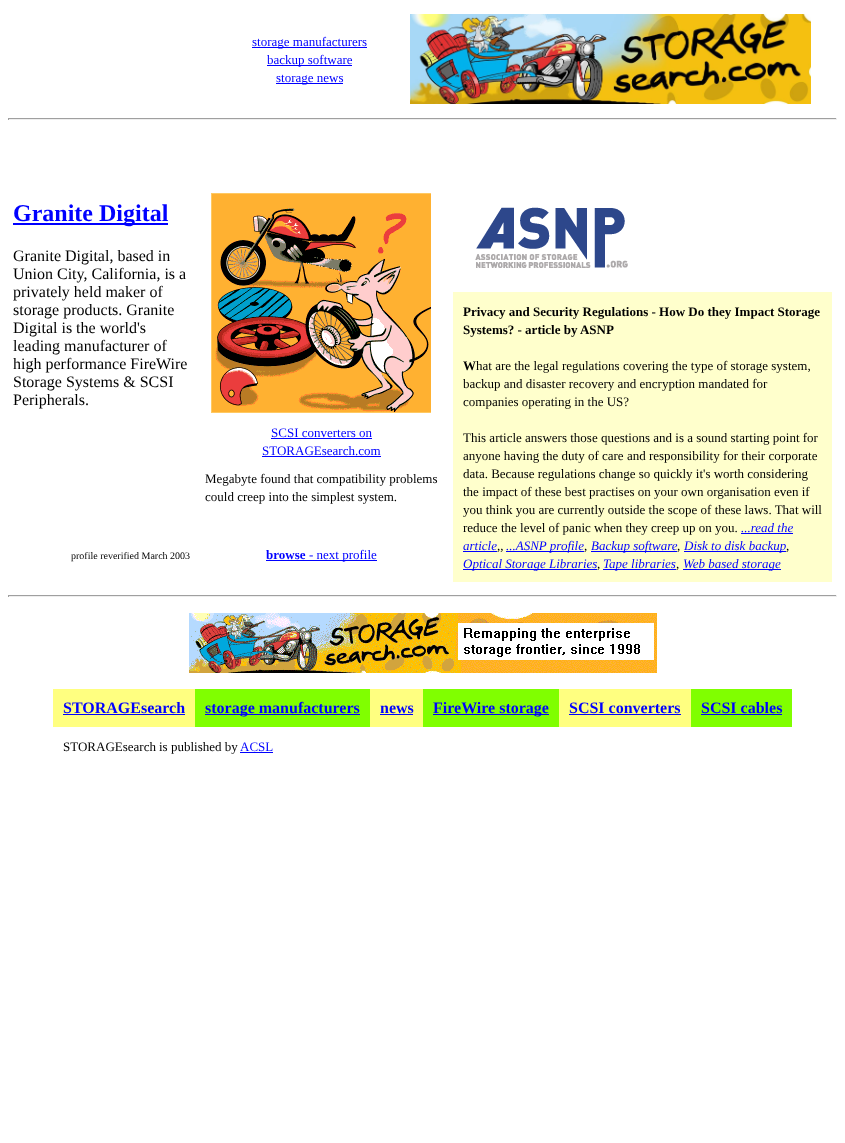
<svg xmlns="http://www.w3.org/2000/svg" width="845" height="1143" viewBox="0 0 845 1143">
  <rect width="100%" height="100%" fill="rgb(255,255,255)"/>
  <rect x="252" y="47" width="115" height="1" fill="rgb(0,0,255)"/>
  <text x="252" y="46" font-family="Liberation Serif" font-size="13" fill="rgb(0,0,255)">storage manufacturers</text>
  <rect x="267" y="65" width="85" height="1" fill="rgb(0,0,255)"/>
  <text x="267" y="64" font-family="Liberation Serif" font-size="13" fill="rgb(0,0,255)">backup software</text>
  <rect x="276" y="83" width="67" height="1" fill="rgb(0,0,255)"/>
  <text x="276" y="82" font-family="Liberation Serif" font-size="13" fill="rgb(0,0,255)">storage news</text>
  <image x="410" y="14" width="401" height="90" href="pic1.png"/>
  <rect x="8" y="118" width="829" height="1" fill="rgb(159,159,159)"/>
  <rect x="836" y="118" width="1" height="2" fill="rgb(238,238,238)"/>
  <rect x="8" y="119" width="829" height="1" fill="rgb(238,238,238)"/>
  <rect x="8" y="118" width="1" height="2" fill="rgb(159,159,159)"/>
  <rect x="13" y="223" width="155" height="2" fill="rgb(0,0,255)"/>
  <text x="13" y="221" font-family="Liberation Serif" font-size="24" font-weight="bold" fill="rgb(0,0,255)">Granite Digital</text>
  <g font-family="Liberation Serif" font-size="16" fill="rgb(0,0,0)">
    <text>
      <tspan x="13" y="261">Granite Digital, based in</tspan>
      <tspan x="13" y="279">Union City, California, is a</tspan>
      <tspan x="13" y="297">privately held maker of</tspan>
      <tspan x="13" y="315">storage products. Granite</tspan>
      <tspan x="13" y="333">Digital is the world's</tspan>
      <tspan x="13" y="351">leading manufacturer of</tspan>
      <tspan x="13" y="369">high performance FireWire</tspan>
      <tspan x="13" y="387">Storage Systems &amp; SCSI</tspan>
      <tspan x="13" y="405">Peripherals.</tspan>
    </text>
  </g>
  <image x="211" y="193" width="220" height="220" href="pic2.png"/>
  <text x="271" y="437" font-family="Liberation Serif" font-size="13" fill="rgb(0,0,255)">SCSI converters on</text>
  <rect x="271" y="438" width="101" height="1" fill="rgb(0,0,255)"/>
  <text x="262" y="455" font-family="Liberation Serif" font-size="13" fill="rgb(0,0,255)">STORAGEsearch.com</text>
  <rect x="262" y="456" width="119" height="1" fill="rgb(0,0,255)"/>
  <g font-family="Liberation Serif" font-size="13" fill="rgb(0,0,0)">
    <text>
      <tspan x="205" y="483">Megabyte found that compatibility problems</tspan>
      <tspan x="205" y="501">could creep into the simplest system.</tspan>
    </text>
  </g>
  <image x="475" y="207" width="153" height="61" href="pic3.png"/>
  <rect x="453" y="292" width="379" height="290" fill="rgb(255,255,204)"/>
  <g font-family="Liberation Serif" font-size="13" font-weight="bold" fill="rgb(0,0,0)">
    <text>
      <tspan x="463" y="316">Privacy and Security Regulations - How Do they Impact Storage</tspan>
      <tspan x="463" y="334">Systems? - article by ASNP</tspan>
    </text>
    <text x="463" y="370">W</text>
  </g>
  <g font-family="Liberation Serif" font-size="13" fill="rgb(0,0,0)">
    <text x="476" y="370">hat are the legal regulations covering the type of storage system,</text>
    <text>
      <tspan x="463" y="388">backup and disaster recovery and encryption mandated for</tspan>
      <tspan x="463" y="406">companies operating in the US?</tspan>
    </text>
    <text>
      <tspan x="463" y="442">This article answers those questions and is a sound starting point for</tspan>
      <tspan x="463" y="460">anyone having the duty of care and responsibility for their corporate</tspan>
      <tspan x="463" y="478">data. Because regulations change so quickly it's worth considering</tspan>
      <tspan x="463" y="496">the impact of these best practises on your own organisation even if</tspan>
      <tspan x="463" y="514">you think you are currently outside the scope of these laws. That will</tspan>
      <tspan x="463" y="532">reduce the level of panic when they creep up on you.</tspan>
    </text>
  </g>
  <text x="741" y="532" font-family="Liberation Serif" font-size="13" font-style="italic" fill="rgb(0,0,255)">...read the</text>
  <rect x="741" y="533" width="52" height="1" fill="rgb(0,0,255)"/>
  <text x="463" y="550" font-family="Liberation Serif" font-size="13" font-style="italic" fill="rgb(0,0,255)">article</text>
  <rect x="463" y="551" width="34" height="1" fill="rgb(0,0,255)"/>
  <text x="497" y="550" font-family="Liberation Serif" font-size="13" font-style="italic" fill="rgb(0,0,0)">,,</text>
  <rect x="506" y="551" width="78" height="1" fill="rgb(0,0,255)"/>
  <text x="506" y="550" font-family="Liberation Serif" font-size="13" font-style="italic" fill="rgb(0,0,255)">...ASNP profile</text>
  <text x="584" y="550" font-family="Liberation Serif" font-size="13" font-style="italic" fill="rgb(0,0,0)">,</text>
  <rect x="591" y="551" width="86" height="1" fill="rgb(0,0,255)"/>
  <text x="591" y="550" font-family="Liberation Serif" font-size="13" font-style="italic" fill="rgb(0,0,255)">Backup software</text>
  <text x="677" y="550" font-family="Liberation Serif" font-size="13" font-style="italic" fill="rgb(0,0,0)">,</text>
  <rect x="684" y="551" width="102" height="1" fill="rgb(0,0,255)"/>
  <text x="684" y="550" font-family="Liberation Serif" font-size="13" font-style="italic" fill="rgb(0,0,255)">Disk to disk backup</text>
  <text x="786" y="550" font-family="Liberation Serif" font-size="13" font-style="italic" fill="rgb(0,0,0)">,</text>
  <rect x="463" y="569" width="134" height="1" fill="rgb(0,0,255)"/>
  <text x="463" y="568" font-family="Liberation Serif" font-size="13" font-style="italic" fill="rgb(0,0,255)">Optical Storage Libraries</text>
  <text x="597" y="568" font-family="Liberation Serif" font-size="13" font-style="italic" fill="rgb(0,0,0)">,</text>
  <rect x="603" y="569" width="73" height="1" fill="rgb(0,0,255)"/>
  <text x="603" y="568" font-family="Liberation Serif" font-size="13" font-style="italic" fill="rgb(0,0,255)">Tape libraries</text>
  <text x="676" y="568" font-family="Liberation Serif" font-size="13" font-style="italic" fill="rgb(0,0,0)">,</text>
  <rect x="683" y="569" width="98" height="1" fill="rgb(0,0,255)"/>
  <text x="683" y="568" font-family="Liberation Serif" font-size="13" font-style="italic" fill="rgb(0,0,255)">Web based storage</text>
  <text x="71" y="559" font-family="Liberation Serif" font-size="10" fill="rgb(0,0,0)">profile reverified March 2003</text>
  <text x="266" y="559" font-family="Liberation Serif" font-size="13" font-weight="bold" fill="rgb(0,0,255)">browse</text>
  <rect x="266" y="560" width="111" height="1" fill="rgb(0,0,255)"/>
  <text x="309" y="559" font-family="Liberation Serif" font-size="13" fill="rgb(0,0,255)">- next profile</text>
  <rect x="8" y="595" width="829" height="1" fill="rgb(159,159,159)"/>
  <rect x="836" y="595" width="1" height="2" fill="rgb(238,238,238)"/>
  <rect x="8" y="596" width="829" height="1" fill="rgb(238,238,238)"/>
  <rect x="8" y="595" width="1" height="2" fill="rgb(159,159,159)"/>
  <image x="189" y="613" width="468" height="60" href="pic4.png"/>
  <rect x="53" y="689" width="142" height="38" fill="rgb(255,255,128)"/>
  <text x="63" y="713" font-family="Liberation Serif" font-size="16" font-weight="bold" fill="rgb(0,0,255)">STORAGEsearch</text>
  <rect x="63" y="714" width="122" height="1" fill="rgb(0,0,255)"/>
  <rect x="195" y="689" width="175" height="38" fill="rgb(128,255,0)"/>
  <rect x="205" y="714" width="155" height="1" fill="rgb(0,0,255)"/>
  <text x="205" y="713" font-family="Liberation Serif" font-size="16" font-weight="bold" fill="rgb(0,0,255)">storage manufacturers</text>
  <rect x="370" y="689" width="53" height="38" fill="rgb(255,255,128)"/>
  <text x="380" y="713" font-family="Liberation Serif" font-size="16" font-weight="bold" fill="rgb(0,0,255)">news</text>
  <rect x="380" y="714" width="33" height="1" fill="rgb(0,0,255)"/>
  <rect x="423" y="689" width="136" height="38" fill="rgb(128,255,0)"/>
  <rect x="433" y="714" width="116" height="1" fill="rgb(0,0,255)"/>
  <text x="433" y="713" font-family="Liberation Serif" font-size="16" font-weight="bold" fill="rgb(0,0,255)">FireWire storage</text>
  <rect x="559" y="689" width="132" height="38" fill="rgb(255,255,128)"/>
  <text x="569" y="713" font-family="Liberation Serif" font-size="16" font-weight="bold" fill="rgb(0,0,255)">SCSI converters</text>
  <rect x="569" y="714" width="112" height="1" fill="rgb(0,0,255)"/>
  <rect x="691" y="689" width="101" height="38" fill="rgb(128,255,0)"/>
  <text x="701" y="713" font-family="Liberation Serif" font-size="16" font-weight="bold" fill="rgb(0,0,255)">SCSI cables</text>
  <rect x="701" y="714" width="81" height="1" fill="rgb(0,0,255)"/>
  <g font-family="Liberation Serif" font-size="13" fill="rgb(0,0,0)">
    <text x="63" y="751">STORAGEsearch</text>
    <text x="159" y="751">is published by</text>
  </g>
  <rect x="240" y="752" width="33" height="1" fill="rgb(0,0,255)"/>
  <text x="240" y="751" font-family="Liberation Serif" font-size="13" fill="rgb(0,0,255)">ACSL</text>
</svg>
